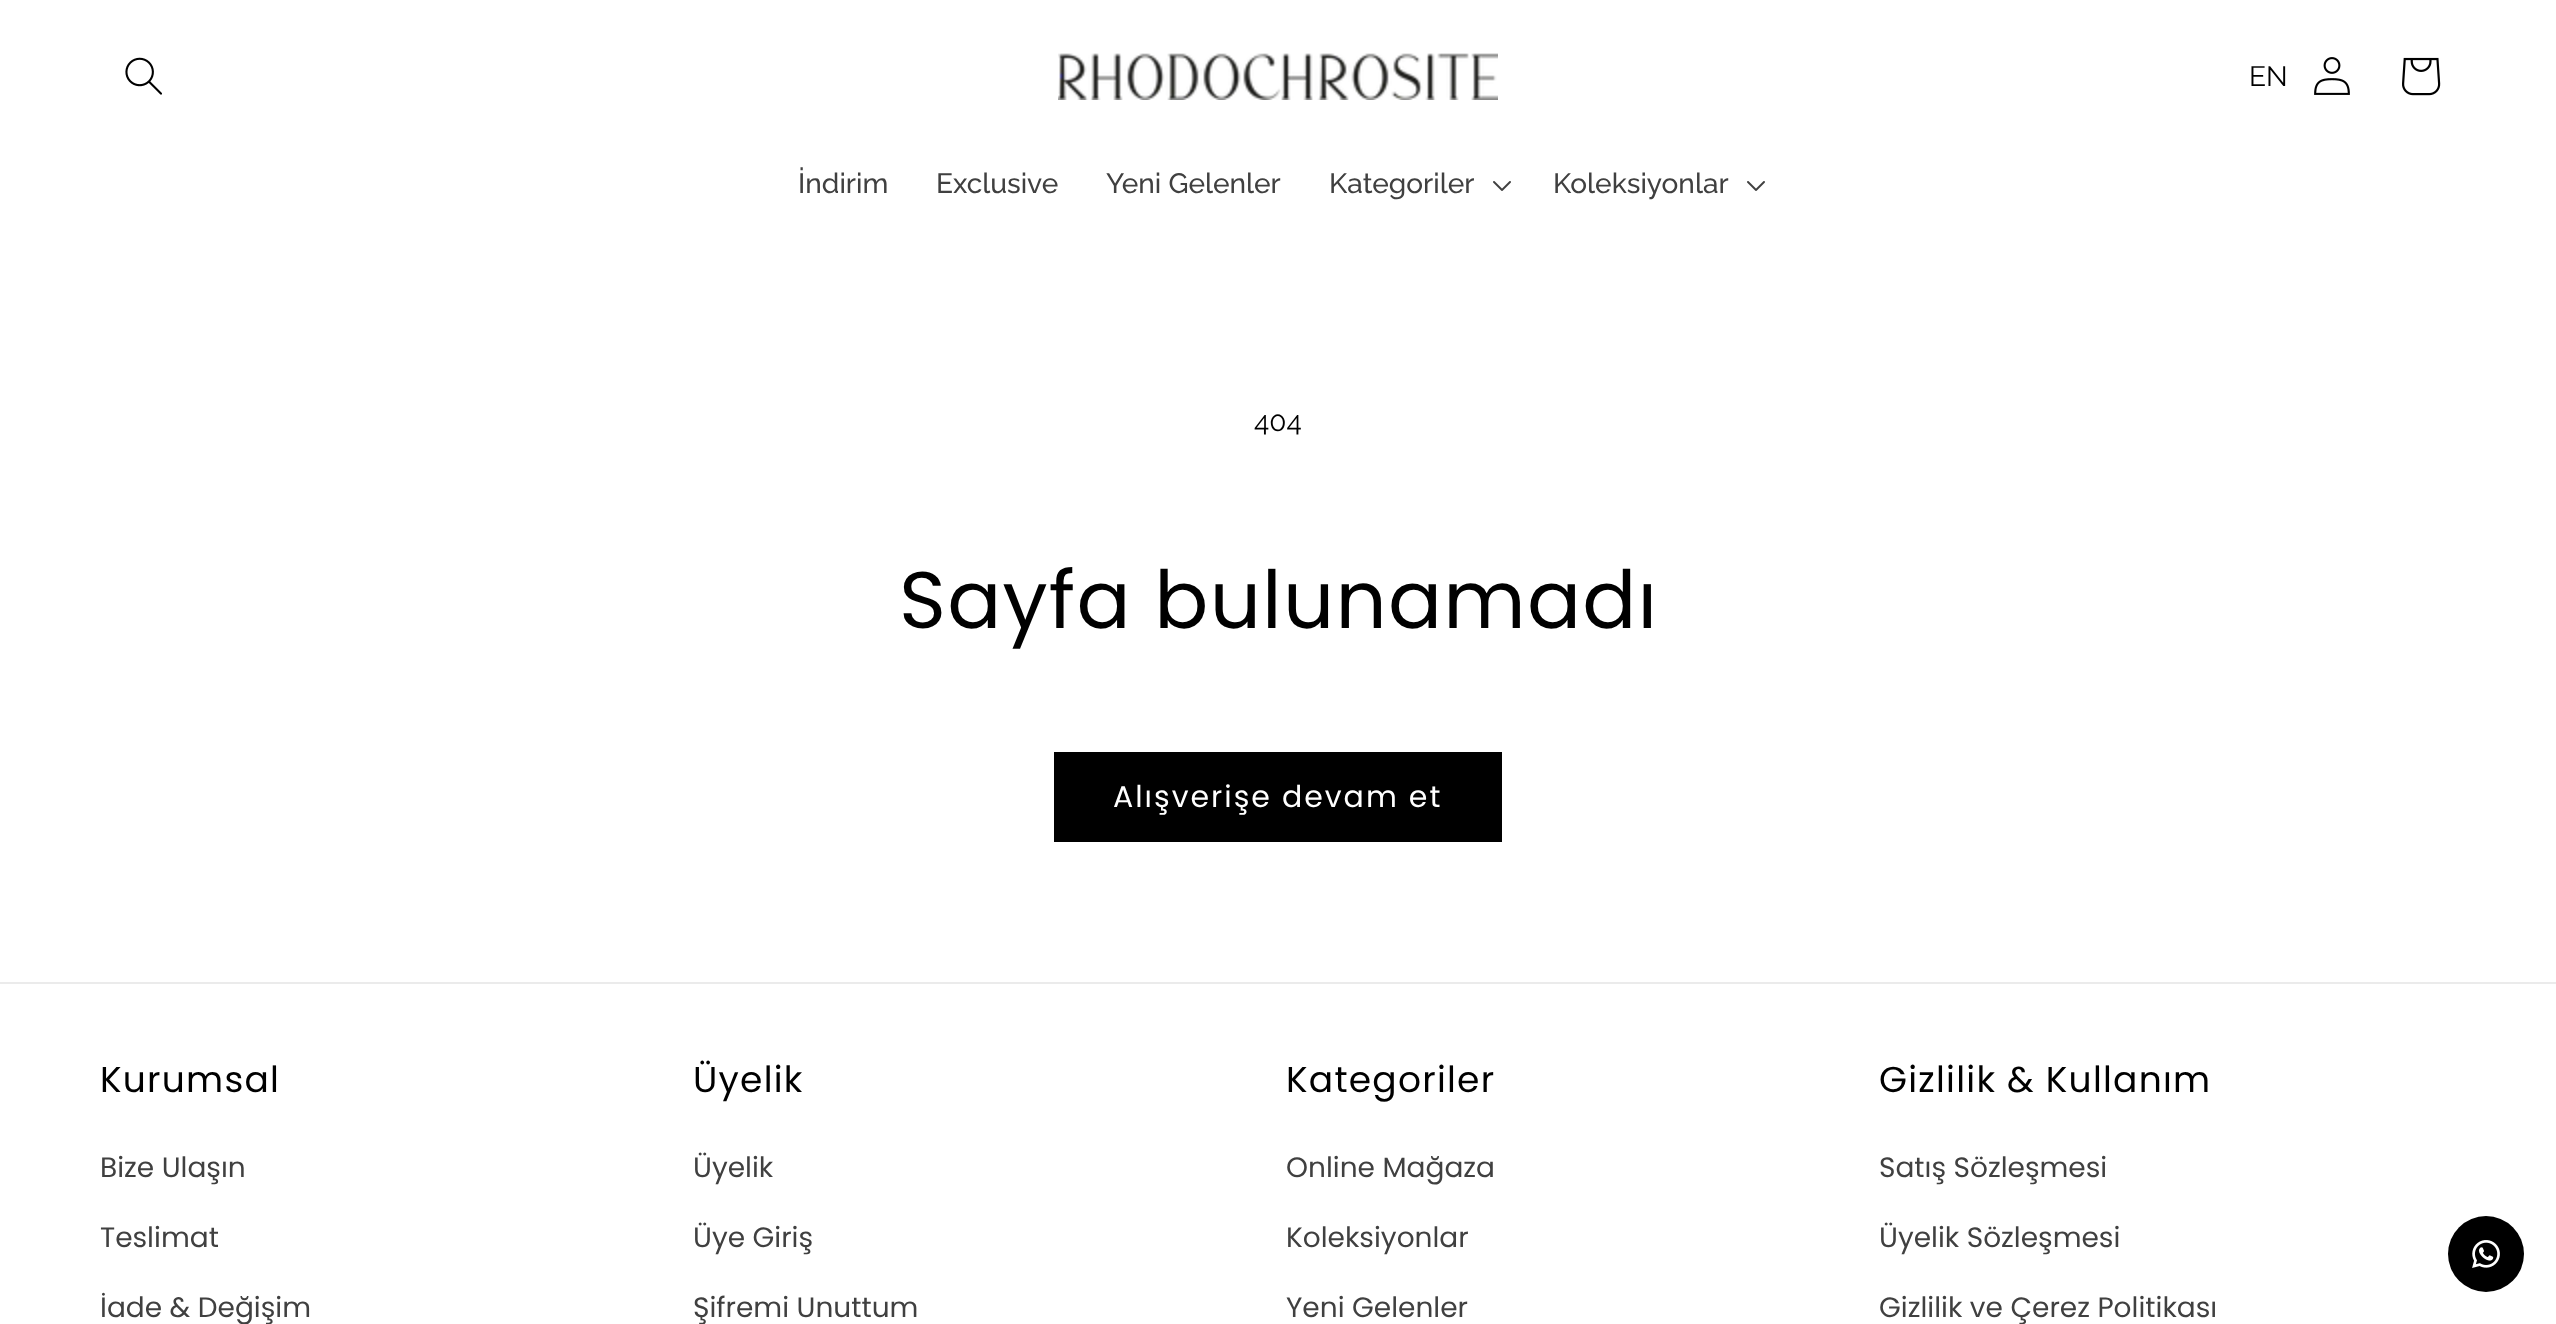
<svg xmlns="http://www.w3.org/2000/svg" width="2556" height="1324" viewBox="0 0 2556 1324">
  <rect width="100%" height="100%" fill="rgb(255,255,255)"/>
  <image x="125" y="57" width="37" height="38" href="pic1.png"/>
  <image x="1058" y="53" width="440" height="47" href="pic2.png"/>
  <text x="2249" y="86" font-family="Raleway" font-size="28" fill="rgb(0,0,0)">EN</text>
  <image x="2314" y="57" width="36" height="38" href="pic3.png"/>
  <image x="2402" y="57" width="39" height="39" href="pic4.png"/>
  <g font-family="Raleway" font-size="28" font-weight="500" fill="rgb(64,64,64)">
    <text x="798" y="193">İndirim</text>
    <text x="936" y="193">Exclusive</text>
    <text x="1106" y="193">Yeni Gelenler</text>
    <text x="1329" y="193">Kategoriler</text>
  </g>
  <image x="1493" y="181" width="18" height="10" href="pic5.png"/>
  <text x="1553" y="193" font-family="Raleway" font-size="28" font-weight="500" fill="rgb(64,64,64)">Koleksiyonlar</text>
  <image x="1747" y="181" width="18" height="10" href="pic5.png"/>
  <text x="1254" y="431" font-family="Raleway" font-size="28" fill="rgb(0,0,0)">404</text>
  <text x="899" y="628" font-family="Poppins" font-size="80" letter-spacing="1.25" fill="rgb(0,0,0)">Sayfa bulunamadı</text>
  <rect x="1054" y="752" width="448" height="90" fill="rgb(0,0,0)"/>
  <text x="1113" y="807" font-family="Poppins" font-size="30" letter-spacing="2" fill="rgb(255,255,255)">Alışverişe devam et</text>
  <rect x="0" y="982" width="2556" height="2" fill="rgb(235,235,235)"/>
  <text x="100" y="1092" font-family="Poppins" font-size="36" letter-spacing="1.25" fill="rgb(0,0,0)">Kurumsal</text>
  <g font-family="Poppins" font-size="28" fill="rgb(64,64,64)">
    <text x="100" y="1177">Bize Ulaşın</text>
    <text x="100" y="1247">Teslimat</text>
    <text x="100" y="1317">İade &amp; Değişim</text>
  </g>
  <text x="693" y="1092" font-family="Poppins" font-size="36" letter-spacing="1.25" fill="rgb(0,0,0)">Üyelik</text>
  <g font-family="Poppins" font-size="28" fill="rgb(64,64,64)">
    <text x="693" y="1177">Üyelik</text>
    <text x="693" y="1247">Üye Giriş</text>
    <text x="693" y="1317">Şifremi Unuttum</text>
  </g>
  <text x="1286" y="1092" font-family="Poppins" font-size="36" letter-spacing="1.25" fill="rgb(0,0,0)">Kategoriler</text>
  <g font-family="Poppins" font-size="28" fill="rgb(64,64,64)">
    <text x="1286" y="1177">Online Mağaza</text>
    <text x="1286" y="1247">Koleksiyonlar</text>
    <text x="1286" y="1317">Yeni Gelenler</text>
  </g>
  <text x="1879" y="1092" font-family="Poppins" font-size="36" letter-spacing="1.25" fill="rgb(0,0,0)">Gizlilik &amp; Kullanım</text>
  <g font-family="Poppins" font-size="28" fill="rgb(64,64,64)">
    <text x="1879" y="1177">Satış Sözleşmesi</text>
    <text x="1879" y="1247">Üyelik Sözleşmesi</text>
    <text x="1879" y="1317">Gizlilik ve Çerez Politikası</text>
  </g>
  <circle cx="2486" cy="1254" r="38" fill="rgb(0,0,0)"/>
  <image x="2472" y="1240" width="28" height="28" href="pic6.png"/>
</svg>
